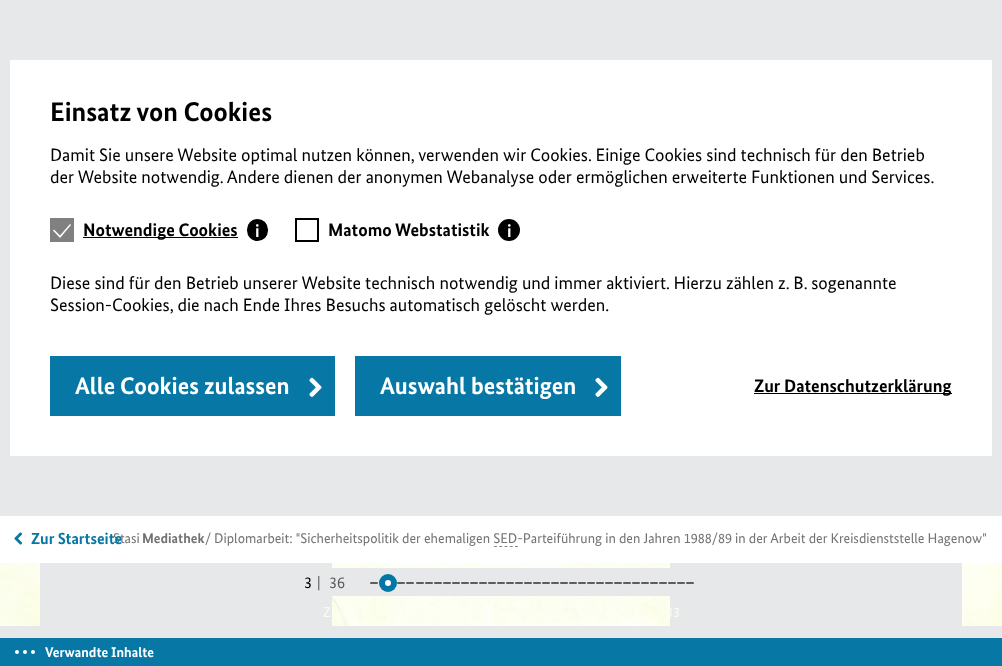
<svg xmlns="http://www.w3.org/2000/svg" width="1002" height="666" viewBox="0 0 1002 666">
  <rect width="100%" height="100%" fill="rgb(230,232,233)"/>
  <rect x="10" y="60" width="982" height="396" fill="rgb(255,255,255)"/>
  <text x="50" y="121" font-family="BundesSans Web" font-size="27" font-weight="bold" fill="rgb(0,0,0)">Einsatz von Cookies</text>
  <g font-family="BundesSans Web" font-size="18" fill="rgb(0,0,0)">
    <text>
      <tspan x="50" y="161">Damit Sie unsere Website optimal nutzen können, verwenden wir Cookies. Einige Cookies sind technisch für den Betrieb</tspan>
      <tspan x="50" y="183">der Website notwendig. Andere dienen der anonymen Webanalyse oder ermöglichen erweiterte Funktionen und Services.</tspan>
    </text>
  </g>
  <rect x="50" y="218" width="24" height="24" fill="rgb(128,128,128)"/>
  <path d="M54 229.5L53 230.5L60 238L71 225L70 224L60 235.5Z" fill="rgb(255,255,255)"/>
  <rect x="83" y="237" width="155" height="1" fill="rgb(0,0,0)"/>
  <text x="83" y="236" font-family="BundesSans Web" font-size="18" font-weight="bold" fill="rgb(0,0,0)">Notwendige Cookies</text>
  <rect x="247" y="219" width="21" height="22" rx="10.5" fill="rgb(0,0,0)"/>
  <image x="256" y="224" width="3" height="13" href="pic1.png"/>
  <rect x="296" y="219" width="22" height="22" fill="none" stroke="rgb(0,0,0)" stroke-width="2"/>
  <text x="328" y="236" font-family="BundesSans Web" font-size="18" font-weight="bold" fill="rgb(0,0,0)">Matomo Webstatistik</text>
  <circle cx="509" cy="230" r="11" fill="rgb(0,0,0)"/>
  <image x="508" y="224" width="3" height="13" href="pic1.png"/>
  <g font-family="BundesSans Web" font-size="18" fill="rgb(0,0,0)">
    <text>
      <tspan x="50" y="289">Diese sind für den Betrieb unserer Website technisch notwendig und immer aktiviert. Hierzu zählen z. B. sogenannte</tspan>
      <tspan x="50" y="311">Session-Cookies, die nach Ende Ihres Besuchs automatisch gelöscht werden.</tspan>
    </text>
  </g>
  <rect x="50" y="356" width="285" height="60" fill="rgb(7,120,165)"/>
  <text x="75" y="394" font-family="BundesSans Web" font-size="24" font-weight="bold" fill="rgb(255,255,255)">Alle Cookies zulassen</text>
  <image x="309" y="377" width="13" height="20" href="pic2.png"/>
  <rect x="355" y="356" width="266" height="60" fill="rgb(7,120,165)"/>
  <text x="380" y="394" font-family="BundesSans Web" font-size="24" font-weight="bold" fill="rgb(255,255,255)">Auswahl bestätigen</text>
  <image x="595" y="377" width="13" height="20" href="pic2.png"/>
  <rect x="754" y="393" width="198" height="1" fill="rgb(0,0,0)"/>
  <text x="754" y="392" font-family="BundesSans Web" font-size="18" font-weight="bold" fill="rgb(0,0,0)">Zur Datenschutzerklärung</text>
  <rect x="0" y="516" width="1002" height="47" fill="rgb(255,255,255)"/>
  <image x="14" y="532" width="8" height="13" href="pic3.png"/>
  <text x="113" y="543" font-family="BundesSans Web" font-size="14" fill="rgb(115,115,115)">Stasi</text>
  <text x="31" y="544" font-family="BundesSans Web" font-size="16" font-weight="bold" fill="rgb(7,120,165)">Zur Startseite</text>
  <text x="142" y="543" font-family="BundesSans Web" font-size="14" font-weight="bold" fill="rgb(115,115,115)">Mediathek</text>
  <text x="205" y="543" font-family="BundesSans Web" font-size="14" fill="rgb(115,115,115)">/ Diplomarbeit: "Sicherheitspolitik der ehemaligen SED-Parteiführung in den Jahren 1988/89 in der Arbeit der Kreisdienststelle Hagenow"</text>
  <path d="M494 546.5H518" fill="none" stroke="rgb(136,136,136)" stroke-dasharray="3 2.25"/>
  <image x="0" y="563" width="40" height="63" href="pic4.png"/>
  <image x="332" y="563" width="338" height="63" href="pic5.png"/>
  <image x="962" y="563" width="40" height="63" href="pic6.png"/>
  <rect x="332" y="568" width="338" height="28" fill="rgb(230,232,233)"/>
  <text x="304" y="588" font-family="BundesSans Web" font-size="16" fill="rgb(0,0,0)">3</text>
  <g font-family="BundesSans Web" font-size="16" fill="rgb(92,93,93)">
    <text x="317" y="588">|</text>
    <text x="329" y="588">36</text>
  </g>
  <circle cx="388" cy="583" r="9" fill="rgb(0,119,167)"/>
  <circle cx="388" cy="583" r="3" fill="rgb(255,255,255)"/>
  <rect x="397" y="582" width="8" height="2" rx="1" fill="rgb(92,93,93)"/>
  <rect x="406" y="582" width="8" height="2" rx="1" fill="rgb(92,93,93)"/>
  <rect x="416" y="582" width="8" height="2" rx="1" fill="rgb(92,93,93)"/>
  <rect x="425" y="582" width="8" height="2" rx="1" fill="rgb(92,93,93)"/>
  <rect x="434" y="582" width="8" height="2" rx="1" fill="rgb(92,93,93)"/>
  <rect x="443" y="582" width="8" height="2" rx="1" fill="rgb(92,93,93)"/>
  <rect x="452" y="582" width="8" height="2" rx="1" fill="rgb(92,93,93)"/>
  <rect x="461" y="582" width="8" height="2" rx="1" fill="rgb(92,93,93)"/>
  <rect x="470" y="582" width="8" height="2" rx="1" fill="rgb(92,93,93)"/>
  <rect x="479" y="582" width="8" height="2" rx="1" fill="rgb(92,93,93)"/>
  <rect x="488" y="582" width="8" height="2" rx="1" fill="rgb(92,93,93)"/>
  <rect x="497" y="582" width="8" height="2" rx="1" fill="rgb(92,93,93)"/>
  <rect x="506" y="582" width="8" height="2" rx="1" fill="rgb(92,93,93)"/>
  <rect x="515" y="582" width="8" height="2" rx="1" fill="rgb(92,93,93)"/>
  <rect x="524" y="582" width="8" height="2" rx="1" fill="rgb(92,93,93)"/>
  <rect x="533" y="582" width="8" height="2" rx="1" fill="rgb(92,93,93)"/>
  <rect x="542" y="582" width="8" height="2" rx="1" fill="rgb(92,93,93)"/>
  <rect x="551" y="582" width="8" height="2" rx="1" fill="rgb(92,93,93)"/>
  <rect x="560" y="582" width="8" height="2" rx="1" fill="rgb(92,93,93)"/>
  <rect x="569" y="582" width="8" height="2" rx="1" fill="rgb(92,93,93)"/>
  <rect x="578" y="582" width="8" height="2" rx="1" fill="rgb(92,93,93)"/>
  <rect x="587" y="582" width="8" height="2" rx="1" fill="rgb(92,93,93)"/>
  <rect x="596" y="582" width="8" height="2" rx="1" fill="rgb(92,93,93)"/>
  <rect x="605" y="582" width="8" height="2" rx="1" fill="rgb(92,93,93)"/>
  <rect x="614" y="582" width="8" height="2" rx="1" fill="rgb(92,93,93)"/>
  <rect x="623" y="582" width="8" height="2" rx="1" fill="rgb(92,93,93)"/>
  <rect x="632" y="582" width="8" height="2" rx="1" fill="rgb(92,93,93)"/>
  <rect x="641" y="582" width="8" height="2" rx="1" fill="rgb(92,93,93)"/>
  <rect x="650" y="582" width="8" height="2" rx="1" fill="rgb(92,93,93)"/>
  <rect x="668" y="582" width="8" height="2" rx="1" fill="rgb(92,93,93)"/>
  <rect x="677" y="582" width="8" height="2" rx="1" fill="rgb(92,93,93)"/>
  <rect x="686" y="582" width="8" height="2" rx="1" fill="rgb(92,93,93)"/>
  <rect x="370" y="582" width="8" height="2" rx="1" fill="rgb(92,93,93)"/>
  <text x="323" y="617" font-family="BundesSans Web" font-size="14" fill="rgb(251,253,239)">Z</text>
  <rect x="659" y="582" width="8" height="2" rx="1" fill="rgb(92,93,93)"/>
  <text x="666" y="617" font-family="BundesSans Web" font-size="14" fill="rgb(251,253,239)">33</text>
  <rect x="0" y="638" width="1002" height="28" fill="rgb(7,120,165)"/>
  <image x="15" y="650" width="20" height="4" href="pic7.png"/>
  <text x="45" y="657" font-family="BundesSans Web" font-size="14" font-weight="bold" fill="rgb(255,255,255)">Verwandte Inhalte</text>
</svg>
